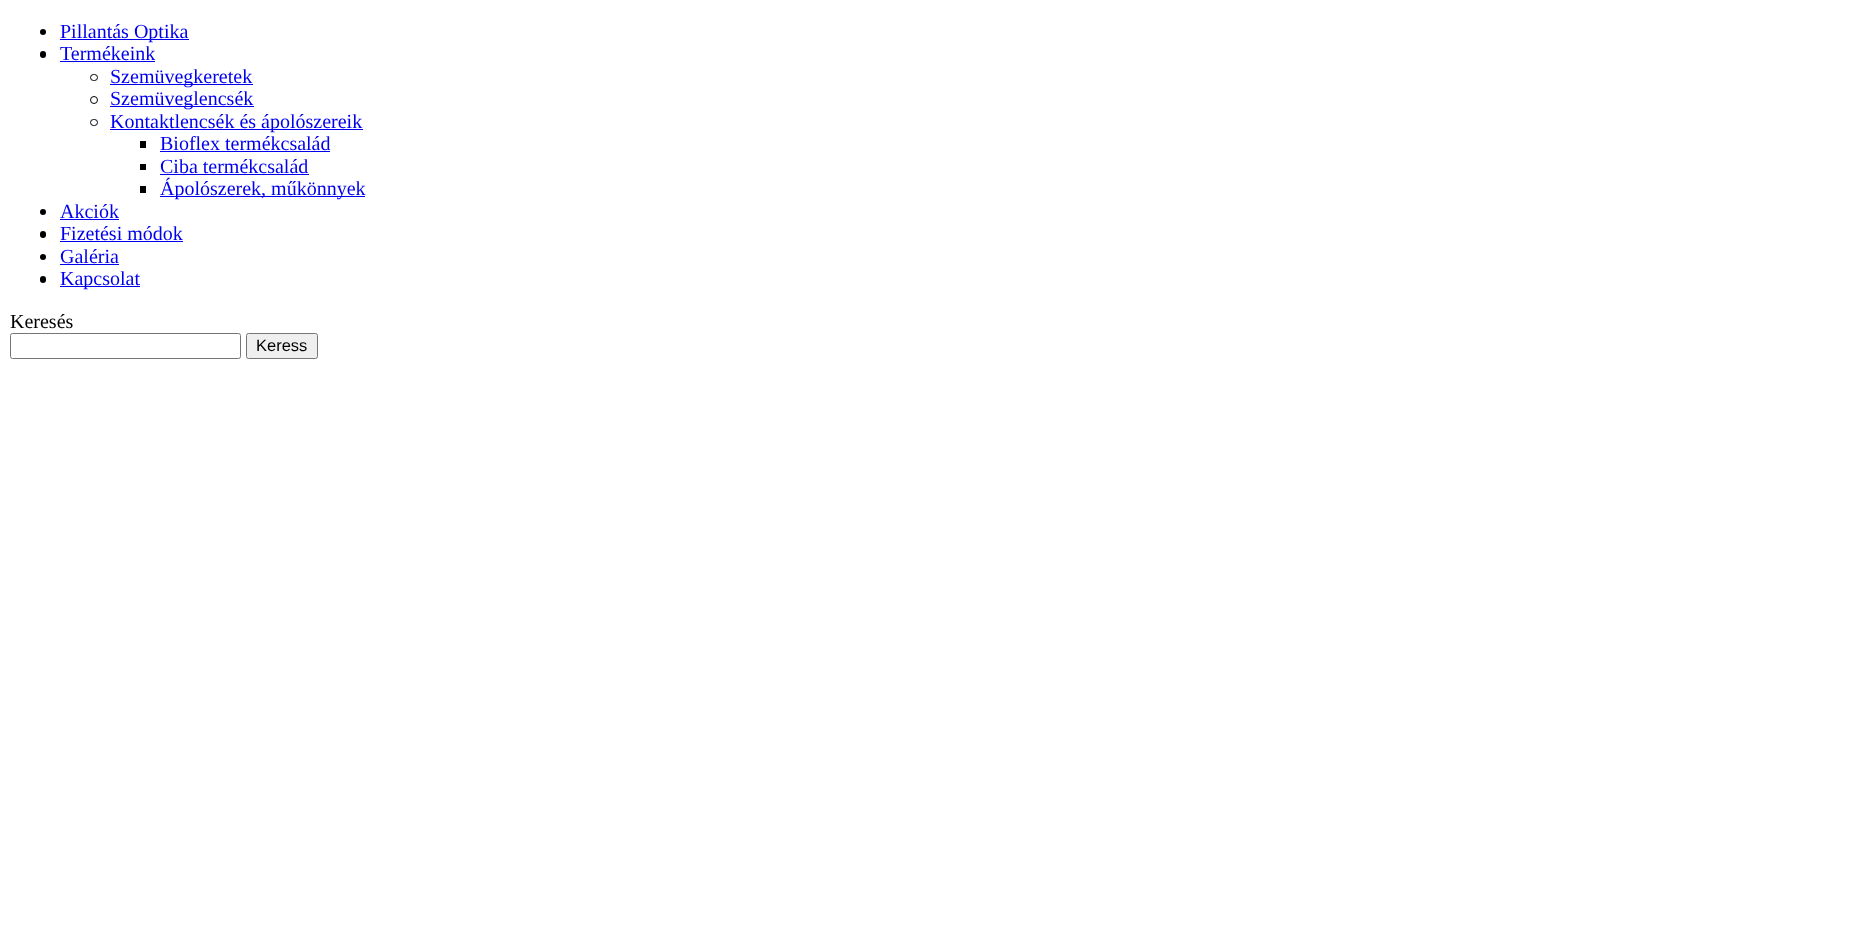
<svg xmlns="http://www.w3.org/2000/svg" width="1858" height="942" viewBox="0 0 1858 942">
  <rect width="100%" height="100%" fill="rgb(255,255,255)"/>
  <circle cx="43" cy="32" r="3" fill="rgb(0,0,0)"/>
  <rect x="60" y="39" width="129" height="1" fill="rgb(0,0,238)"/>
  <text x="60" y="38" font-family="Liberation Serif" font-size="20" fill="rgb(0,0,238)">Pillantás Optika</text>
  <rect x="40" y="51" width="6" height="7" rx="3" fill="rgb(0,0,0)"/>
  <text x="60" y="60" font-family="Liberation Serif" font-size="20" fill="rgb(0,0,238)">Termékeink</text>
  <rect x="60" y="61" width="95" height="1" fill="rgb(0,0,238)"/>
  <rect x="90.5" y="74.5" width="7" height="6" rx="3" fill="none" stroke="rgb(0,0,0)"/>
  <rect x="110" y="84" width="143" height="1" fill="rgb(0,0,238)"/>
  <text x="110" y="83" font-family="Liberation Serif" font-size="20" fill="rgb(0,0,238)">Szemüvegkeretek</text>
  <circle cx="94" cy="100" r="3.5" fill="none" stroke="rgb(0,0,0)"/>
  <rect x="110" y="106" width="144" height="1" fill="rgb(0,0,238)"/>
  <text x="110" y="105" font-family="Liberation Serif" font-size="20" fill="rgb(0,0,238)">Szemüveglencsék</text>
  <rect x="90.5" y="119.5" width="7" height="6" rx="3" fill="none" stroke="rgb(0,0,0)"/>
  <rect x="110" y="129" width="253" height="1" fill="rgb(0,0,238)"/>
  <text x="110" y="128" font-family="Liberation Serif" font-size="20" fill="rgb(0,0,238)">Kontaktlencsék és ápolószereik</text>
  <rect x="140" y="141" width="6" height="7" fill="rgb(0,0,0)"/>
  <text x="160" y="150" font-family="Liberation Serif" font-size="20" fill="rgb(0,0,238)">Bioflex termékcsalád</text>
  <rect x="160" y="151" width="170" height="1" fill="rgb(0,0,238)"/>
  <rect x="140" y="164" width="6" height="6" fill="rgb(0,0,0)"/>
  <text x="160" y="173" font-family="Liberation Serif" font-size="20" fill="rgb(0,0,238)">Ciba termékcsalád</text>
  <rect x="160" y="174" width="149" height="1" fill="rgb(0,0,238)"/>
  <rect x="140" y="186" width="6" height="7" fill="rgb(0,0,0)"/>
  <rect x="160" y="196" width="205" height="1" fill="rgb(0,0,238)"/>
  <text x="160" y="195" font-family="Liberation Serif" font-size="20" fill="rgb(0,0,238)">Ápolószerek, műkönnyek</text>
  <circle cx="43" cy="212" r="3" fill="rgb(0,0,0)"/>
  <text x="60" y="218" font-family="Liberation Serif" font-size="20" fill="rgb(0,0,238)">Akciók</text>
  <rect x="60" y="219" width="59" height="1" fill="rgb(0,0,238)"/>
  <rect x="40" y="231" width="6" height="7" rx="3" fill="rgb(0,0,0)"/>
  <text x="60" y="240" font-family="Liberation Serif" font-size="20" fill="rgb(0,0,238)">Fizetési módok</text>
  <rect x="60" y="241" width="123" height="1" fill="rgb(0,0,238)"/>
  <circle cx="43" cy="257" r="3" fill="rgb(0,0,0)"/>
  <text x="60" y="263" font-family="Liberation Serif" font-size="20" fill="rgb(0,0,238)">Galéria</text>
  <rect x="60" y="264" width="59" height="1" fill="rgb(0,0,238)"/>
  <rect x="40" y="276" width="6" height="7" rx="3" fill="rgb(0,0,0)"/>
  <rect x="60" y="286" width="80" height="1" fill="rgb(0,0,238)"/>
  <text x="60" y="285" font-family="Liberation Serif" font-size="20" fill="rgb(0,0,238)">Kapcsolat</text>
  <text x="10" y="328" font-family="Liberation Serif" font-size="20" fill="rgb(0,0,0)">Keresés</text>
  <rect x="10.5" y="333.5" width="230" height="25" rx="2" fill="none" stroke="rgb(118,118,118)"/>
  <rect x="246.5" y="333.5" width="71" height="25" rx="2" fill="rgb(239,239,239)" stroke="rgb(118,118,118)"/>
  <text x="256" y="351" font-family="Liberation Sans" font-size="16.5" fill="rgb(0,0,0)">Keress</text>
</svg>
